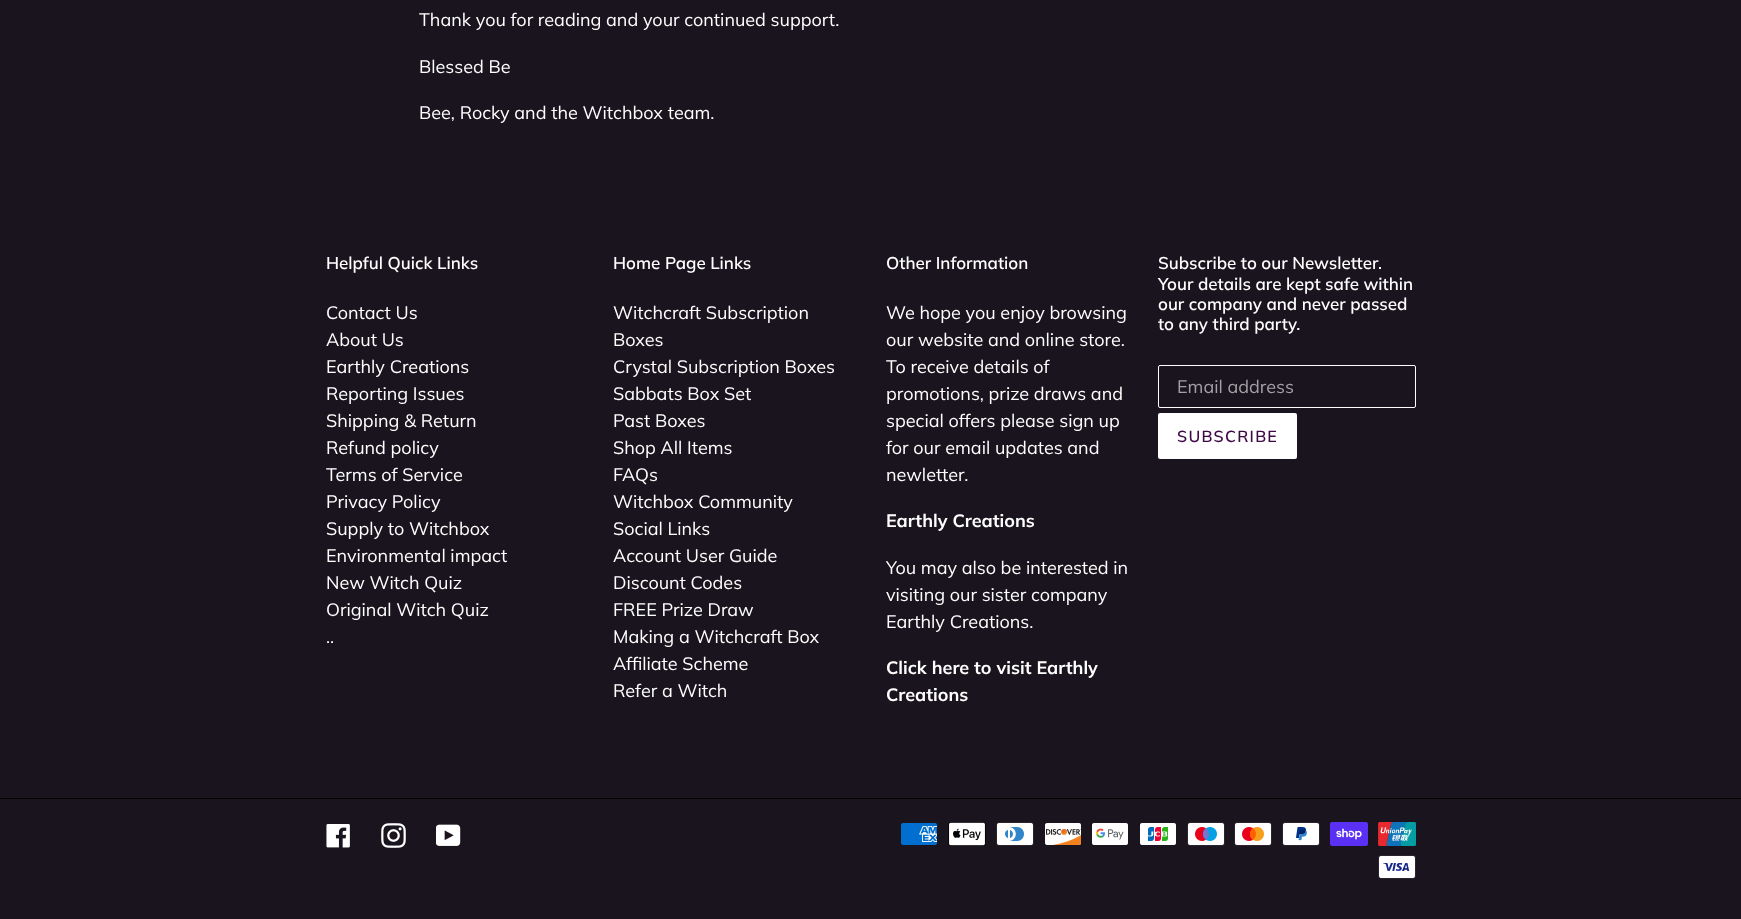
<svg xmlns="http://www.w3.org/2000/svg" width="1741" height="919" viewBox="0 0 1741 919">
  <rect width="100%" height="100%" fill="rgb(26,20,30)"/>
  <g font-family="Muli" font-size="18" fill="rgb(255,255,255)">
    <text x="419" y="26">Thank you for reading and your continued support.</text>
    <text x="419" y="73">Blessed Be</text>
    <text x="419" y="119">Bee, Rocky and the Witchbox team.</text>
  </g>
  <text x="326" y="269" font-family="Muli" font-size="17" font-weight="600" fill="rgb(255,255,255)">Helpful Quick Links</text>
  <g font-family="Muli" font-size="18" fill="rgb(255,255,255)">
    <text>
      <tspan x="326" y="319">Contact Us</tspan>
      <tspan x="326" y="346">About Us</tspan>
      <tspan x="326" y="373">Earthly Creations</tspan>
      <tspan x="326" y="400">Reporting Issues</tspan>
      <tspan x="326" y="427">Shipping &amp; Return</tspan>
      <tspan x="326" y="454">Refund policy</tspan>
      <tspan x="326" y="481">Terms of Service</tspan>
      <tspan x="326" y="508">Privacy Policy</tspan>
      <tspan x="326" y="535">Supply to Witchbox</tspan>
      <tspan x="326" y="562">Environmental impact</tspan>
      <tspan x="326" y="589">New Witch Quiz</tspan>
      <tspan x="326" y="616">Original Witch Quiz</tspan>
      <tspan x="326" y="643">..</tspan>
    </text>
  </g>
  <text x="613" y="269" font-family="Muli" font-size="17" font-weight="600" fill="rgb(255,255,255)">Home Page Links</text>
  <g font-family="Muli" font-size="18" fill="rgb(255,255,255)">
    <text>
      <tspan x="613" y="319">Witchcraft Subscription</tspan>
      <tspan x="613" y="346">Boxes</tspan>
      <tspan x="613" y="373">Crystal Subscription Boxes</tspan>
      <tspan x="613" y="400">Sabbats Box Set</tspan>
      <tspan x="613" y="427">Past Boxes</tspan>
      <tspan x="613" y="454">Shop All Items</tspan>
      <tspan x="613" y="481">FAQs</tspan>
      <tspan x="613" y="508">Witchbox Community</tspan>
      <tspan x="613" y="535">Social Links</tspan>
      <tspan x="613" y="562">Account User Guide</tspan>
      <tspan x="613" y="589">Discount Codes</tspan>
      <tspan x="613" y="616">FREE Prize Draw</tspan>
      <tspan x="613" y="643">Making a Witchcraft Box</tspan>
      <tspan x="613" y="670">Affiliate Scheme</tspan>
      <tspan x="613" y="697">Refer a Witch</tspan>
    </text>
  </g>
  <text x="886" y="269" font-family="Muli" font-size="17" font-weight="600" fill="rgb(255,255,255)">Other Information</text>
  <g font-family="Muli" font-size="18" fill="rgb(255,255,255)">
    <text>
      <tspan x="886" y="319">We hope you enjoy browsing</tspan>
      <tspan x="886" y="346">our website and online store.</tspan>
      <tspan x="886" y="373">To receive details of</tspan>
      <tspan x="886" y="400">promotions, prize draws and</tspan>
      <tspan x="886" y="427">special offers please sign up</tspan>
      <tspan x="886" y="454">for our email updates and</tspan>
      <tspan x="886" y="481">newletter.</tspan>
    </text>
  </g>
  <text x="886" y="527" font-family="Muli" font-size="18" font-weight="bold" fill="rgb(255,255,255)">Earthly Creations</text>
  <g font-family="Muli" font-size="18" fill="rgb(255,255,255)">
    <text>
      <tspan x="886" y="574">You may also be interested in</tspan>
      <tspan x="886" y="601">visiting our sister company</tspan>
      <tspan x="886" y="628">Earthly Creations.</tspan>
    </text>
  </g>
  <g font-family="Muli" font-size="18" font-weight="bold" fill="rgb(255,255,255)">
    <text>
      <tspan x="886" y="674">Click here to visit Earthly</tspan>
      <tspan x="886" y="701">Creations</tspan>
    </text>
  </g>
  <g font-family="Muli" font-size="17" font-weight="600" fill="rgb(255,255,255)">
    <text>
      <tspan x="1158" y="269">Subscribe to our Newsletter.</tspan>
      <tspan x="1158" y="290">Your details are kept safe within</tspan>
      <tspan x="1158" y="310">our company and never passed</tspan>
      <tspan x="1158" y="330">to any third party.</tspan>
    </text>
  </g>
  <rect x="1158.5" y="365.5" width="257" height="42" rx="1.5" fill="none" stroke="rgb(255,255,255)"/>
  <text x="1177" y="393" font-family="Muli" font-size="18" fill="rgb(163,161,165)">Email address</text>
  <rect x="1158" y="413" width="139" height="46" rx="2" fill="rgb(255,255,255)"/>
  <text x="1177" y="442" font-family="Muli" font-size="16" font-weight="600" letter-spacing="1.25" fill="rgb(61,10,69)">SUBSCRIBE</text>
  <rect x="0" y="798" width="1741" height="1" fill="rgb(0,0,0)"/>
  <image x="326" y="824" width="24" height="24" href="pic1.png"/>
  <image x="381" y="823" width="25" height="25" href="pic2.png"/>
  <image x="436" y="824" width="25" height="22" href="pic3.png"/>
  <image x="901" y="823" width="36" height="22" href="pic4.png"/>
  <image x="948" y="822" width="38" height="24" href="pic5.png"/>
  <image x="996" y="822" width="38" height="24" href="pic6.png"/>
  <image x="1045" y="823" width="36" height="22" href="pic7.png"/>
  <image x="1092" y="823" width="36" height="22" href="pic8.png"/>
  <image x="1140" y="823" width="36" height="22" href="pic9.png"/>
  <image x="1187" y="822" width="38" height="24" href="pic10.png"/>
  <image x="1234" y="822" width="38" height="24" href="pic11.png"/>
  <image x="1282" y="822" width="38" height="24" href="pic12.png"/>
  <image x="1330" y="822" width="38" height="24" href="pic13.png"/>
  <image x="1378" y="822" width="38" height="24" href="pic14.png"/>
  <image x="1378" y="855" width="38" height="24" href="pic15.png"/>
</svg>
